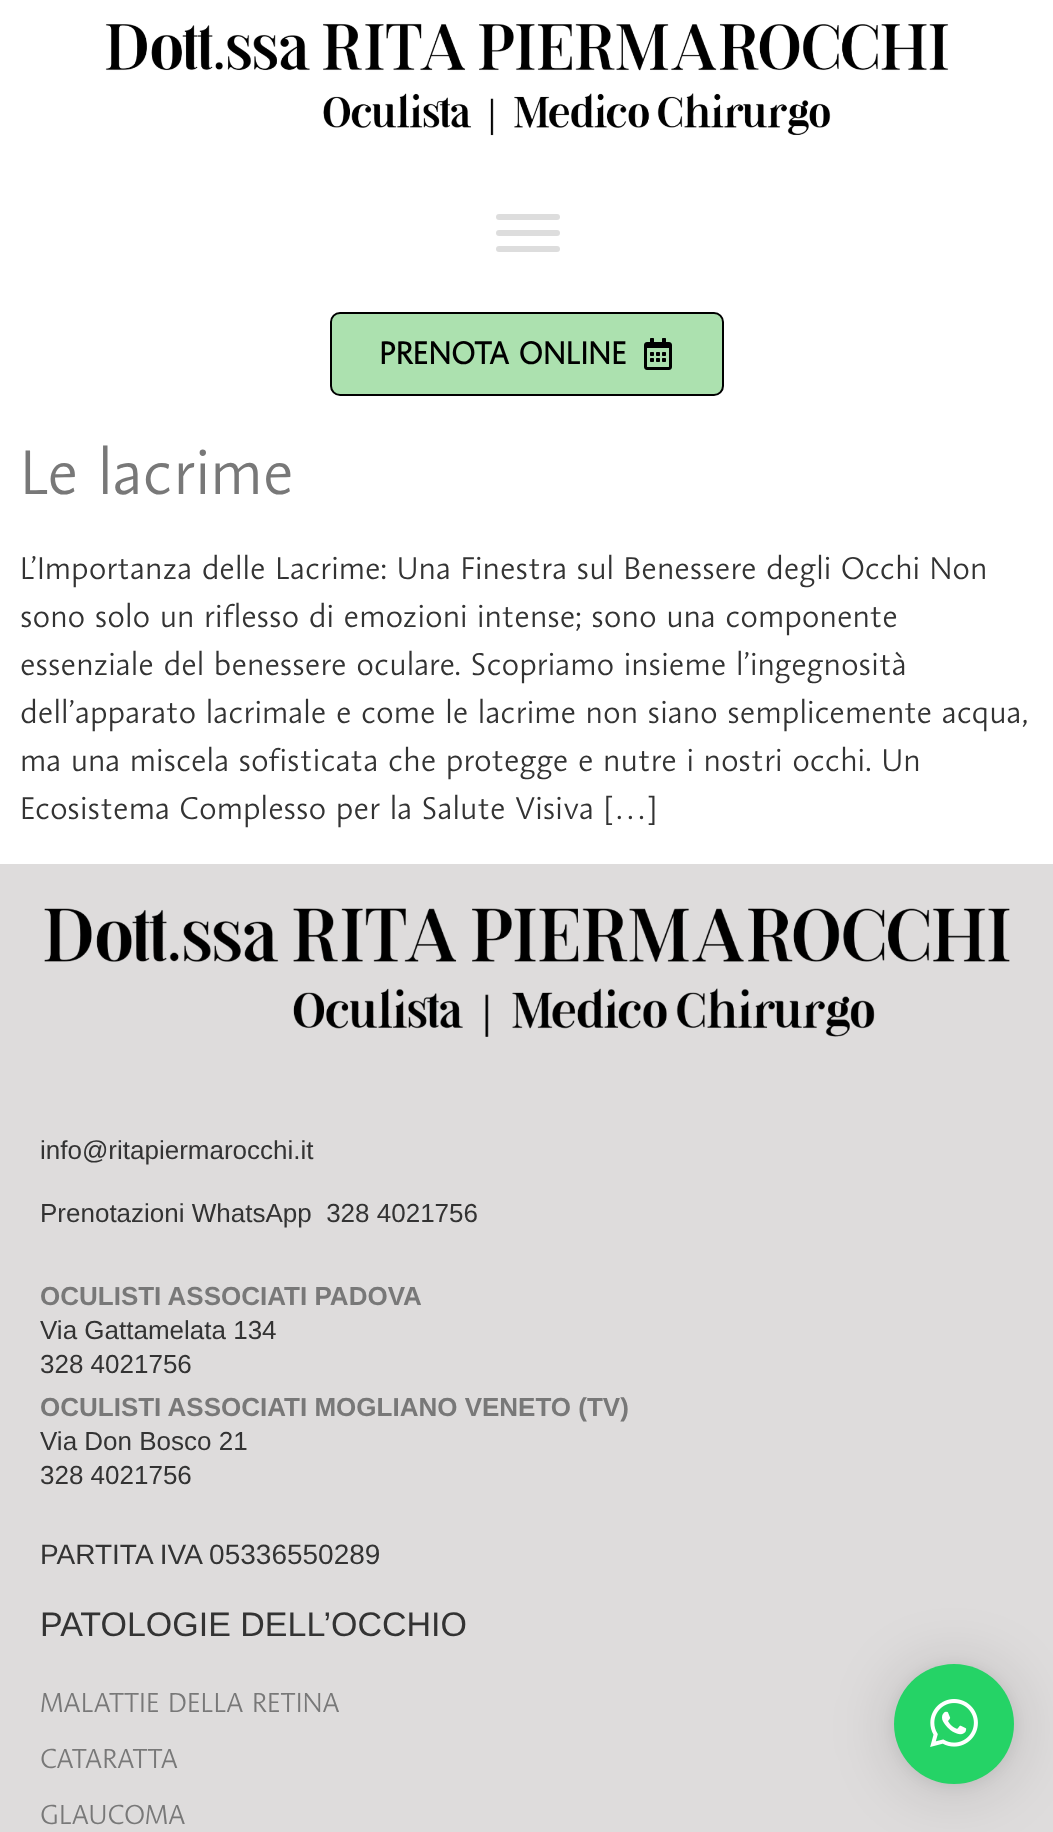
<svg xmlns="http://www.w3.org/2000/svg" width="1053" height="1832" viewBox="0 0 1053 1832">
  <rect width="100%" height="100%" fill="rgb(255,255,255)"/>
  <image x="105" y="23" width="844" height="113" href="pic1.png"/>
  <rect x="496" y="214" width="64" height="6" rx="3" fill="rgb(221,221,221)"/>
  <rect x="496" y="230" width="64" height="6" rx="3" fill="rgb(221,221,221)"/>
  <rect x="496" y="246" width="64" height="6" rx="3" fill="rgb(221,221,221)"/>
  <rect x="331" y="313" width="392" height="82" rx="9" fill="rgb(172,225,175)" stroke="rgb(0,0,0)" stroke-width="2"/>
  <text x="379" y="364" font-family="'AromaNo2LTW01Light'" font-size="32" font-weight="bold" fill="rgb(0,0,0)">PRENOTA ONLINE</text>
  <image x="644" y="338" width="28" height="32" href="pic2.png"/>
  <text x="20" y="494" font-family="'AromaNo2LTW01Light'" font-size="64" font-weight="300" fill="rgb(120,120,120)">Le lacrime</text>
  <g font-family="'AromaNo2LTW01Light'" font-size="32" font-weight="300" fill="rgb(51,51,51)">
    <text>
      <tspan x="20" y="579">L’Importanza delle Lacrime: Una Finestra sul Benessere degli Occhi Non</tspan>
      <tspan x="20" y="627">sono solo un riflesso di emozioni intense; sono una componente</tspan>
      <tspan x="20" y="675">essenziale del benessere oculare. Scopriamo insieme l’ingegnosità</tspan>
      <tspan x="20" y="723">dell’apparato lacrimale e come le lacrime non siano semplicemente acqua,</tspan>
      <tspan x="20" y="771">ma una miscela sofisticata che protegge e nutre i nostri occhi. Un</tspan>
      <tspan x="20" y="819">Ecosistema Complesso per la Salute Visiva […]</tspan>
    </text>
  </g>
  <rect x="0" y="864" width="1053" height="968" fill="rgb(222,220,220)"/>
  <image x="44" y="908" width="966" height="129" href="pic3.png"/>
  <g font-family="Liberation Sans" font-size="26" fill="rgb(51,51,51)">
    <text x="40" y="1159">info@ritapiermarocchi.it</text>
    <text x="40" y="1222" xml:space="preserve">Prenotazioni WhatsApp  328 4021756</text>
  </g>
  <text x="40" y="1305" font-family="Liberation Sans" font-size="26" font-weight="bold" fill="rgb(120,120,120)">OCULISTI ASSOCIATI PADOVA</text>
  <g font-family="Liberation Sans" font-size="26" fill="rgb(51,51,51)">
    <text>
      <tspan x="40" y="1339">Via Gattamelata 134</tspan>
      <tspan x="40" y="1373">328 4021756</tspan>
    </text>
  </g>
  <text x="40" y="1416" font-family="Liberation Sans" font-size="26" font-weight="bold" fill="rgb(120,120,120)">OCULISTI ASSOCIATI MOGLIANO VENETO (TV)</text>
  <g font-family="Liberation Sans" font-size="26" fill="rgb(51,51,51)">
    <text>
      <tspan x="40" y="1450">Via Don Bosco 21</tspan>
      <tspan x="40" y="1484">328 4021756</tspan>
    </text>
  </g>
  <text x="40" y="1564" font-family="Liberation Sans" font-size="28" fill="rgb(51,51,51)">PARTITA IVA 05336550289</text>
  <text x="40" y="1636" font-family="Liberation Sans" font-size="34" fill="rgb(51,51,51)">PATOLOGIE DELL’OCCHIO</text>
  <g font-family="'AromaNo2LTW01Light'" font-size="28" font-weight="300" fill="rgb(120,120,120)">
    <text x="40" y="1712">MALATTIE DELLA RETINA</text>
    <text x="40" y="1768">CATARATTA</text>
    <text x="40" y="1824">GLAUCOMA</text>
  </g>
  <rect x="894" y="1668" width="120" height="120" rx="60" fill="rgba(0,0,0,0.16)" filter="blur(32px)"/>
  <rect x="894" y="1666" width="120" height="120" rx="60" fill="rgba(0,0,0,0.06)" filter="blur(6px)"/>
  <circle cx="954" cy="1724" r="60" fill="rgb(37,211,102)"/>
  <image x="930" y="1699" width="48" height="48" href="pic4.png"/>
</svg>
